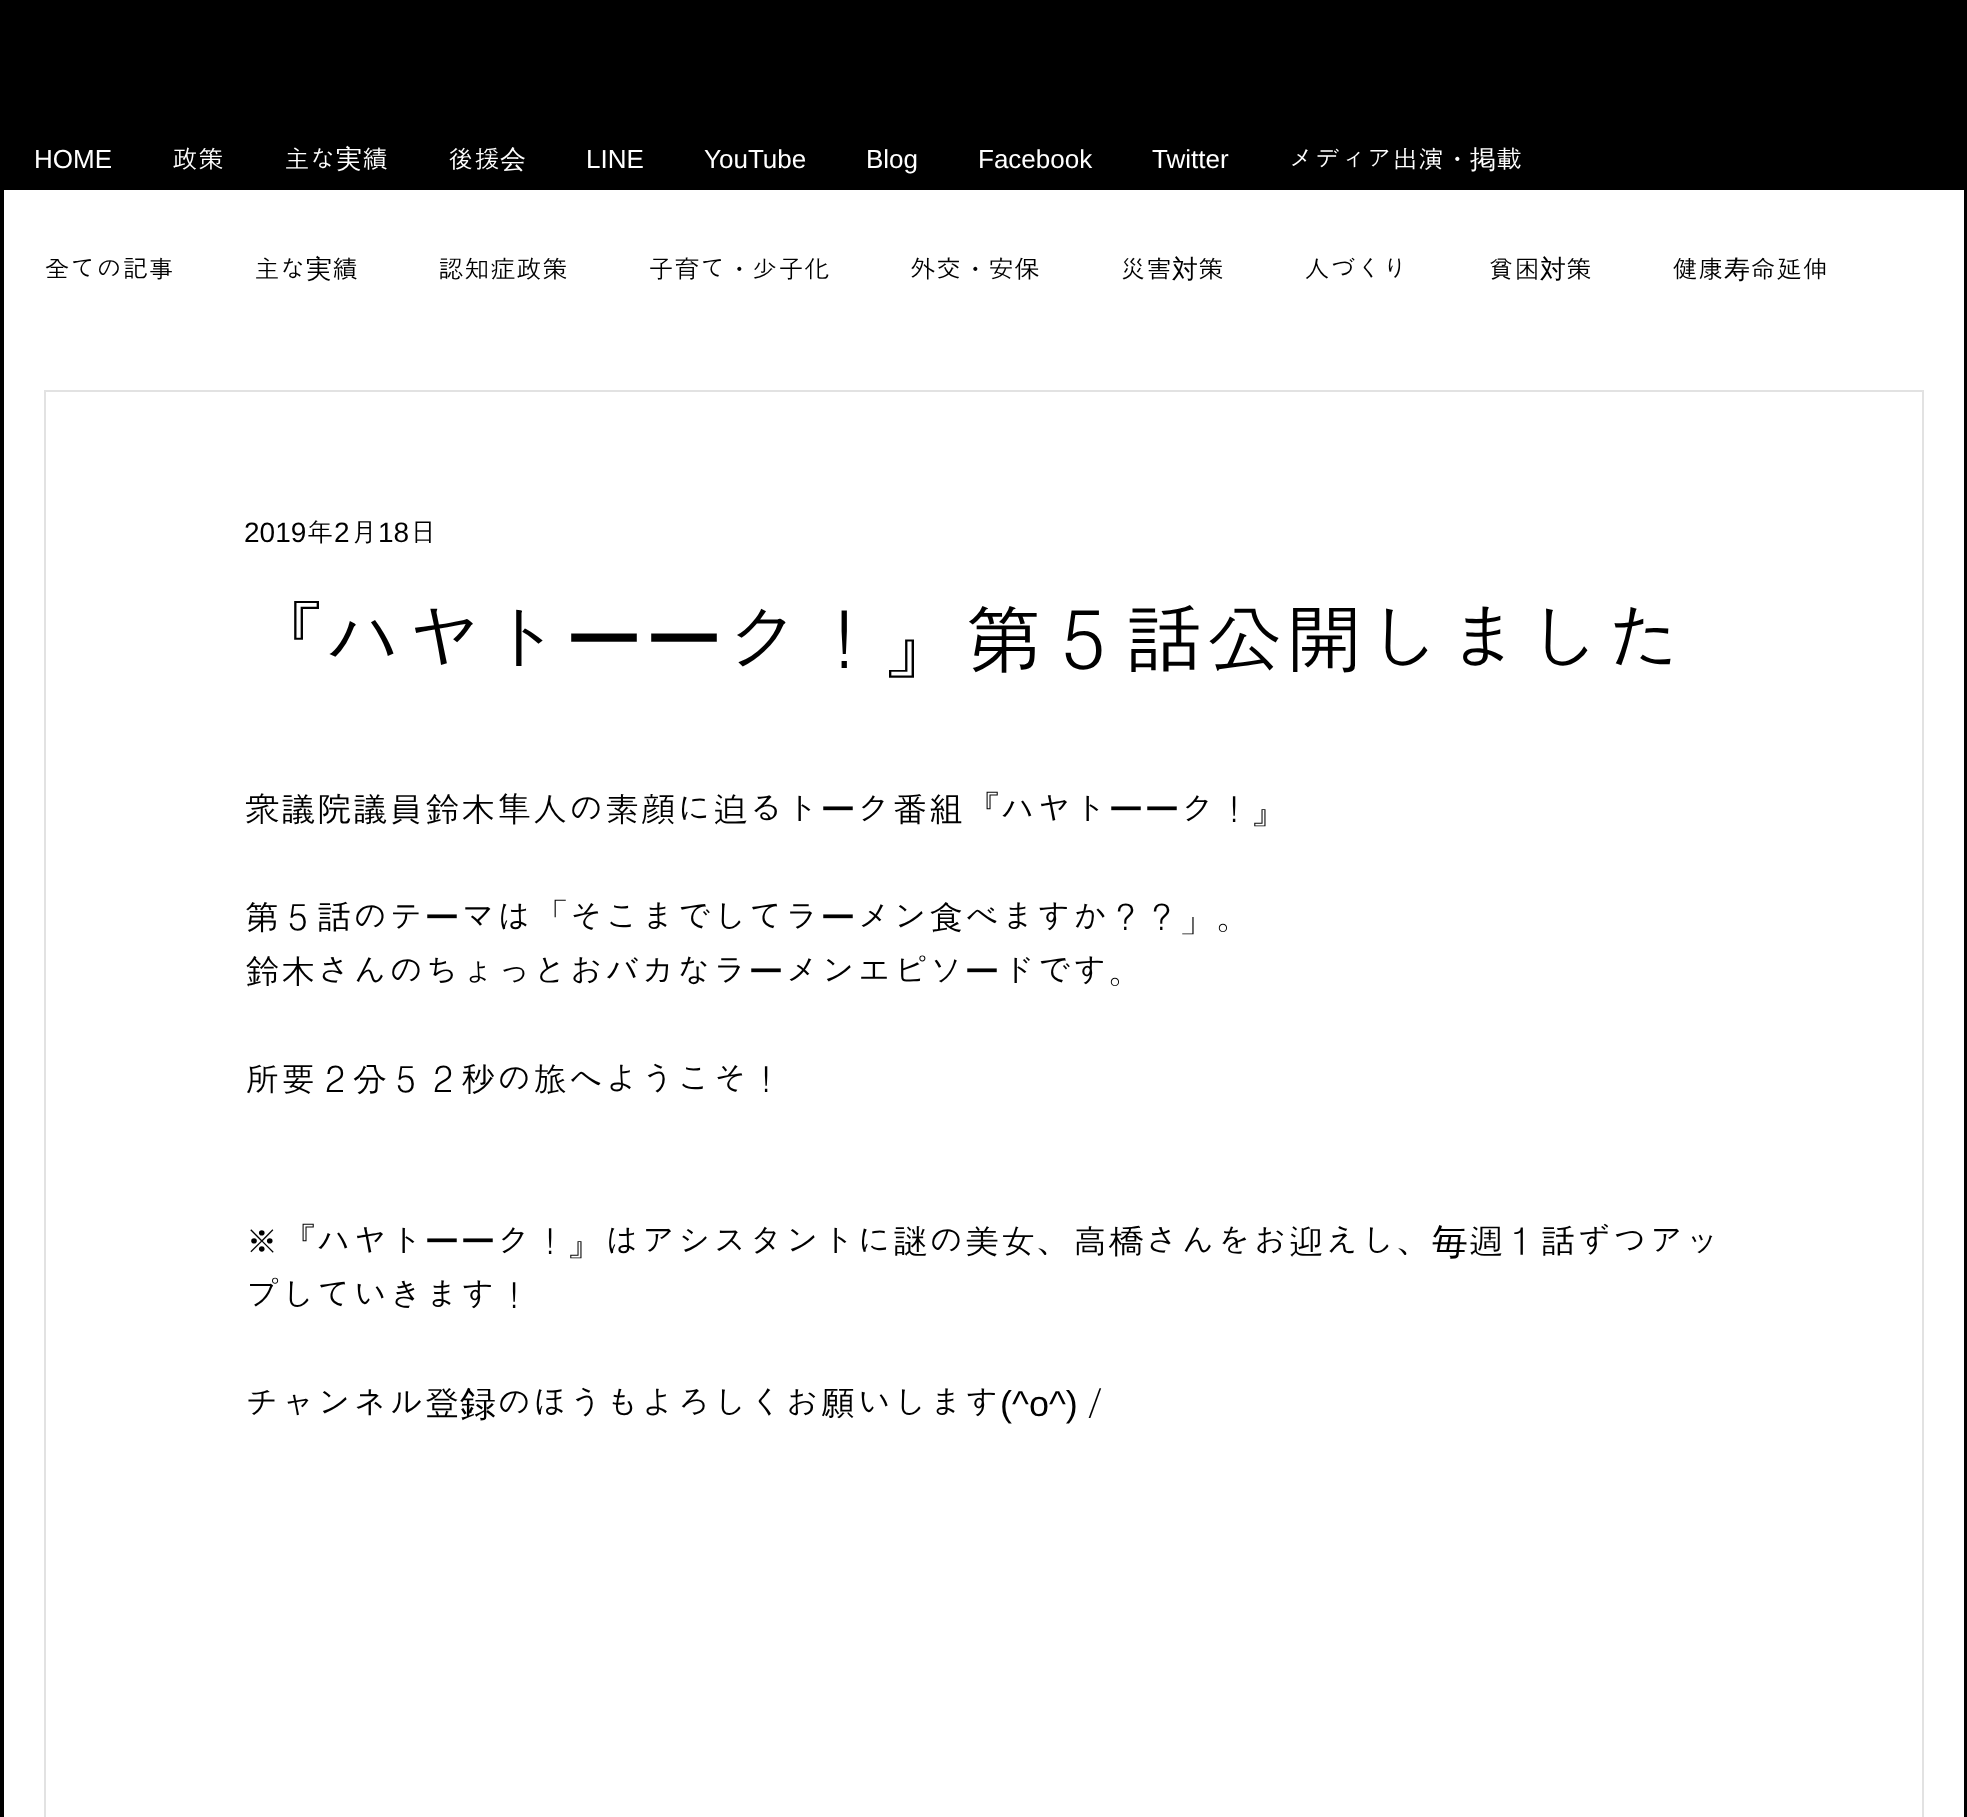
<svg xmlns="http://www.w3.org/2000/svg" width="1967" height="1817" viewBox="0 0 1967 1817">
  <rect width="100%" height="100%" fill="rgb(0,0,0)"/>
  <text x="34" y="168" font-family="Liberation Sans" font-size="26" fill="rgb(255,255,255)">HOME</text>
  <g font-family="Dotum" font-size="26" fill="rgb(255,255,255)">
    <text x="172" y="168">政策</text>
    <text x="284" y="168">主な</text>
  </g>
  <text x="336" y="168" font-family="WenQuanYi Zen Hei" font-size="26" font-weight="500" fill="rgb(255,255,255)">実</text>
  <g font-family="Dotum" font-size="26" fill="rgb(255,255,255)">
    <text x="362" y="168">績</text>
    <text x="448" y="168">後援</text>
  </g>
  <text x="500" y="168" font-family="WenQuanYi Zen Hei" font-size="26" font-weight="500" fill="rgb(255,255,255)">会</text>
  <g font-family="Liberation Sans" font-size="26" fill="rgb(255,255,255)">
    <text x="586" y="168">LINE</text>
    <text x="704" y="168">YouTube</text>
    <text x="866" y="168">Blog</text>
    <text x="978" y="168">Facebook</text>
    <text x="1152" y="168">Twitter</text>
  </g>
  <text x="1288" y="168" font-family="Dotum" font-size="26" fill="rgb(255,255,255)">メディア出演</text>
  <text x="1444" y="168" font-family="WenQuanYi Zen Hei" font-size="26" font-weight="500" fill="rgb(255,255,255)">・掲</text>
  <text x="1496" y="168" font-family="Dotum" font-size="26" fill="rgb(255,255,255)">載</text>
  <rect x="4" y="190" width="1960" height="1627" fill="rgb(255,255,255)"/>
  <g font-family="Dotum" font-size="26" fill="rgb(0,0,0)">
    <text x="44" y="278">全ての記事</text>
    <text x="254" y="278">主な</text>
  </g>
  <text x="306" y="278" font-family="WenQuanYi Zen Hei" font-size="26" font-weight="500" fill="rgb(0,0,0)">実</text>
  <g font-family="Dotum" font-size="26" fill="rgb(0,0,0)">
    <text x="332" y="278">績</text>
    <text x="438" y="278">認知症政策</text>
    <text x="648" y="278">子育て</text>
  </g>
  <text x="726" y="278" font-family="WenQuanYi Zen Hei" font-size="26" font-weight="500" fill="rgb(0,0,0)">・</text>
  <g font-family="Dotum" font-size="26" fill="rgb(0,0,0)">
    <text x="752" y="278">少子化</text>
    <text x="910" y="278">外交</text>
  </g>
  <text x="962" y="278" font-family="WenQuanYi Zen Hei" font-size="26" font-weight="500" fill="rgb(0,0,0)">・</text>
  <g font-family="Dotum" font-size="26" fill="rgb(0,0,0)">
    <text x="988" y="278">安保</text>
    <text x="1120" y="278">災害</text>
  </g>
  <text x="1172" y="278" font-family="WenQuanYi Zen Hei" font-size="26" font-weight="500" fill="rgb(0,0,0)">対</text>
  <g font-family="Dotum" font-size="26" fill="rgb(0,0,0)">
    <text x="1198" y="278">策</text>
    <text x="1304" y="278">人づくり</text>
    <text x="1488" y="278">貧困</text>
  </g>
  <text x="1540" y="278" font-family="WenQuanYi Zen Hei" font-size="26" font-weight="500" fill="rgb(0,0,0)">対</text>
  <g font-family="Dotum" font-size="26" fill="rgb(0,0,0)">
    <text x="1566" y="278">策</text>
    <text x="1672" y="278">健康</text>
  </g>
  <text x="1724" y="278" font-family="WenQuanYi Zen Hei" font-size="26" font-weight="500" fill="rgb(0,0,0)">寿</text>
  <text x="1750" y="278" font-family="Dotum" font-size="26" fill="rgb(0,0,0)">命延伸</text>
  <rect x="45" y="391" width="1878" height="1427" fill="none" stroke="rgb(226,226,226)" stroke-width="2"/>
  <text x="244" y="542" font-family="Liberation Sans" font-size="28" fill="rgb(0,0,0)">2019</text>
  <text x="306" y="542" font-family="Dotum" font-size="28" fill="rgb(0,0,0)">年</text>
  <text x="334" y="542" font-family="Liberation Sans" font-size="28" fill="rgb(0,0,0)">2</text>
  <text x="350" y="542" font-family="Dotum" font-size="28" fill="rgb(0,0,0)">月</text>
  <text x="378" y="542" font-family="Liberation Sans" font-size="28" fill="rgb(0,0,0)">18</text>
  <text x="409" y="542" font-family="Dotum" font-size="28" fill="rgb(0,0,0)">日</text>
  <text x="244" y="668" font-family="Dotum" font-size="80" fill="rgb(0,0,0)">『ハヤト</text>
  <text x="564" y="668" font-family="WenQuanYi Zen Hei" font-size="80" font-weight="500" fill="rgb(0,0,0)">ーー</text>
  <text x="724" y="668" font-family="Dotum" font-size="80" fill="rgb(0,0,0)">ク！』第５話公開しました</text>
  <text x="244" y="822" font-family="Dotum" font-size="36" fill="rgb(0,0,0)">衆議院議員鈴木隼人の素顔に迫るト</text>
  <text x="820" y="822" font-family="WenQuanYi Zen Hei" font-size="36" font-weight="500" fill="rgb(0,0,0)">ー</text>
  <text x="856" y="822" font-family="Dotum" font-size="36" fill="rgb(0,0,0)">ク番組『ハヤト</text>
  <text x="1108" y="822" font-family="WenQuanYi Zen Hei" font-size="36" font-weight="500" fill="rgb(0,0,0)">ーー</text>
  <g font-family="Dotum" font-size="36" fill="rgb(0,0,0)">
    <text x="1180" y="822">ク！』</text>
    <text x="244" y="930">第５話のテ</text>
  </g>
  <text x="424" y="930" font-family="WenQuanYi Zen Hei" font-size="36" font-weight="500" fill="rgb(0,0,0)">ー</text>
  <text x="460" y="930" font-family="Dotum" font-size="36" fill="rgb(0,0,0)">マは「そこまでしてラ</text>
  <text x="820" y="930" font-family="WenQuanYi Zen Hei" font-size="36" font-weight="500" fill="rgb(0,0,0)">ー</text>
  <g font-family="Dotum" font-size="36" fill="rgb(0,0,0)">
    <text x="856" y="930">メン食べますか？？」。</text>
    <text x="244" y="984">鈴木さんのちょっとおバカなラ</text>
  </g>
  <text x="748" y="984" font-family="WenQuanYi Zen Hei" font-size="36" font-weight="500" fill="rgb(0,0,0)">ー</text>
  <text x="784" y="984" font-family="Dotum" font-size="36" fill="rgb(0,0,0)">メンエピソ</text>
  <text x="964" y="984" font-family="WenQuanYi Zen Hei" font-size="36" font-weight="500" fill="rgb(0,0,0)">ー</text>
  <g font-family="Dotum" font-size="36" fill="rgb(0,0,0)">
    <text x="1000" y="984">ドです。</text>
    <text x="244" y="1092">所要２分５２秒の旅へようこそ！</text>
    <text x="244" y="1254">※『ハヤト</text>
  </g>
  <text x="424" y="1254" font-family="WenQuanYi Zen Hei" font-size="36" font-weight="500" fill="rgb(0,0,0)">ーー</text>
  <text x="496" y="1254" font-family="Dotum" font-size="36" fill="rgb(0,0,0)">ク！』はアシスタントに謎の美女、高橋さんをお迎えし、</text>
  <text x="1432" y="1254" font-family="WenQuanYi Zen Hei" font-size="36" font-weight="500" fill="rgb(0,0,0)">毎</text>
  <g font-family="Dotum" font-size="36" fill="rgb(0,0,0)">
    <text x="1468" y="1254">週１話ずつアッ</text>
    <text x="244" y="1308">プしていきます！</text>
    <text x="244" y="1416">チャンネル登</text>
  </g>
  <text x="460" y="1416" font-family="WenQuanYi Zen Hei" font-size="36" font-weight="500" fill="rgb(0,0,0)">録</text>
  <text x="496" y="1416" font-family="Dotum" font-size="36" fill="rgb(0,0,0)">のほうもよろしくお願いします</text>
  <text x="1000" y="1416" font-family="Liberation Sans" font-size="36" fill="rgb(0,0,0)">(^o^)</text>
  <text x="1078" y="1416" font-family="Dotum" font-size="36" fill="rgb(0,0,0)">／</text>
</svg>
